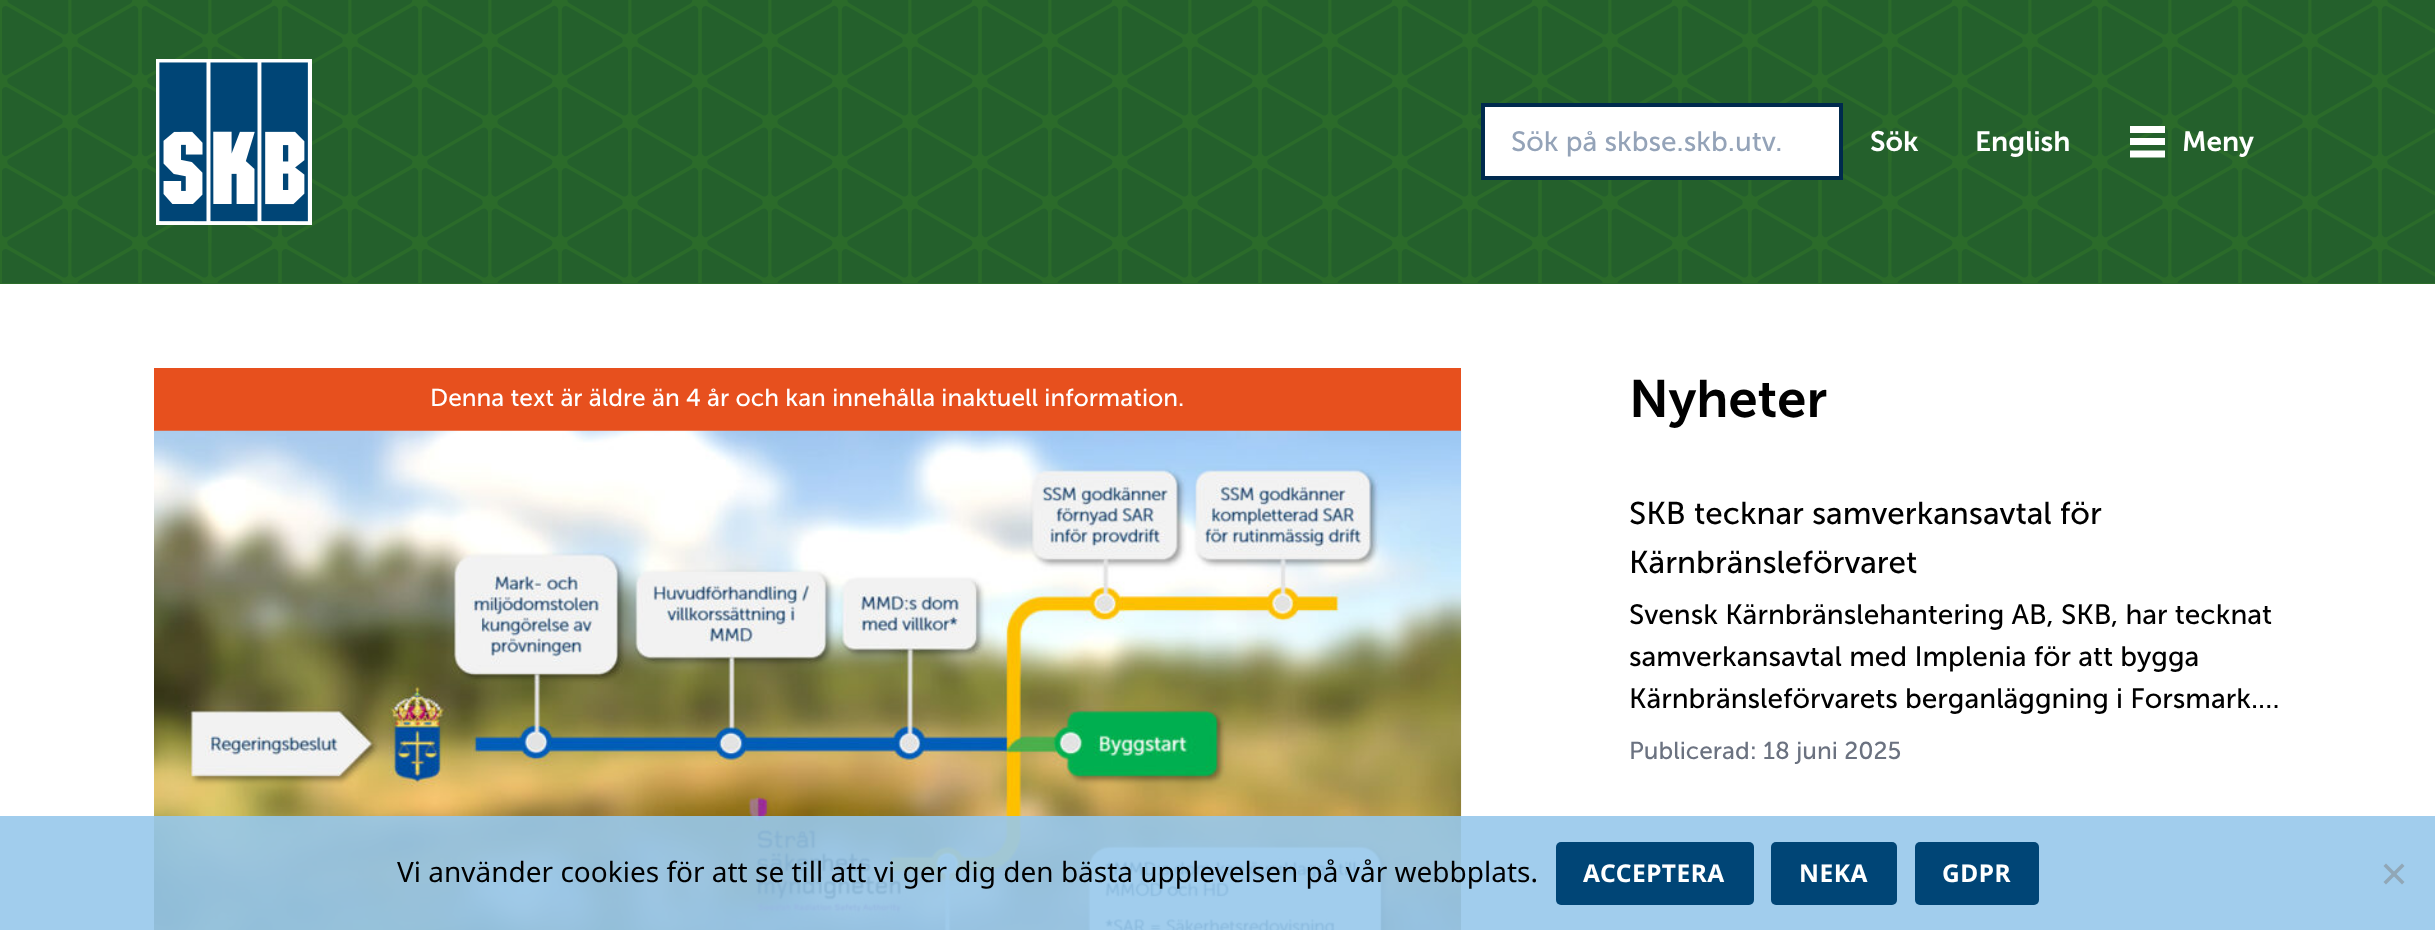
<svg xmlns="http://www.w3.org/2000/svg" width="2435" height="930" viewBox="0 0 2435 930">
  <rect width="100%" height="100%" fill="rgb(255,255,255)"/>
  <rect x="0" y="0" width="2435" height="284" fill="rgb(43,107,42)"/>
  <image x="2" y="0" width="2433" height="283" href="pic1.png"/>
  <image x="156" y="59" width="156" height="166" href="pic2.png"/>
  <rect x="1483" y="105" width="358" height="73" fill="rgb(255,255,255)" stroke="rgb(0,42,78)" stroke-width="4"/>
  <text x="1511" y="151" font-family="'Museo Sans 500'" font-size="28" fill="rgb(148,163,184)">Sök på skbse.skb.utv.</text>
  <g font-family="'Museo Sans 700'" font-size="28" font-weight="600" fill="rgb(255,255,255)">
    <text x="1870" y="151">Sök</text>
    <text x="1975" y="151">English</text>
  </g>
  <path d="M2165 126H2130V133H2165ZM2165 138H2130V145H2165ZM2165 150.5H2130V157.5H2165Z" fill="rgb(255,255,255)"/>
  <text x="2182" y="151" font-family="'Museo Sans 700'" font-size="28" font-weight="600" fill="rgb(255,255,255)">Meny</text>
  <rect x="154" y="368" width="1307" height="63" fill="rgb(231,80,30)"/>
  <text x="430" y="406" font-family="'Museo Sans 500'" font-size="24.5" fill="rgb(255,255,255)">Denna text är äldre än 4 år och kan innehålla inaktuell information.</text>
  <image x="154" y="430" width="1308" height="500" href="pic3.png"/>
  <text x="1629" y="417" font-family="'Museo Sans 700'" font-size="52.5" font-weight="600" fill="rgb(0,0,0)">Nyheter</text>
  <g font-family="'Museo Sans 500'" font-size="31.5" fill="rgb(0,0,0)">
    <text>
      <tspan x="1629" y="524">SKB tecknar samverkansavtal för</tspan>
      <tspan x="1629" y="573">Kärnbränsleförvaret</tspan>
    </text>
  </g>
  <g font-family="'Museo Sans 500'" font-size="28" fill="rgb(0,0,0)">
    <text>
      <tspan x="1629" y="624">Svensk Kärnbränslehantering AB, SKB, har tecknat</tspan>
      <tspan x="1629" y="666">samverkansavtal med Implenia för att bygga</tspan>
      <tspan x="1629" y="708">Kärnbränsleförvarets berganläggning i Forsmark.…</tspan>
    </text>
  </g>
  <text x="1629" y="759" font-family="'Museo Sans 500'" font-size="24.5" fill="rgb(107,114,128)">Publicerad: 18 juni 2025</text>
  <rect x="0" y="816" width="2435" height="114" fill="rgba(151,200,235,0.9)"/>
  <text x="397" y="882" font-family="Noto Sans" font-size="28" fill="rgb(0,0,0)">Vi använder cookies för att se till att vi ger dig den bästa upplevelsen på vår webbplats.</text>
  <rect x="1556" y="842" width="198" height="63" rx="5" fill="rgb(0,69,118)"/>
  <text x="1583" y="882" font-family="Noto Sans" font-size="24.5" font-weight="bold" letter-spacing="0.5" fill="rgb(255,255,255)">ACCEPTERA</text>
  <rect x="1771" y="842" width="126" height="63" rx="5" fill="rgb(0,69,118)"/>
  <text x="1799" y="882" font-family="Noto Sans" font-size="24.5" font-weight="bold" letter-spacing="0.5" fill="rgb(255,255,255)">NEKA</text>
  <rect x="1915" y="842" width="124" height="63" rx="5" fill="rgb(0,69,118)"/>
  <text x="1942" y="882" font-family="Noto Sans" font-size="24.5" font-weight="bold" letter-spacing="0.5" fill="rgb(255,255,255)">GDPR</text>
  <path d="M2402 863.5L2404.5 866L2386 884.5L2383.5 882Z" fill="rgb(145,167,183)"/>
  <path d="M2383.5 866L2386 863.5L2404.5 882L2402 884.5Z" fill="rgb(145,167,183)"/>
</svg>
